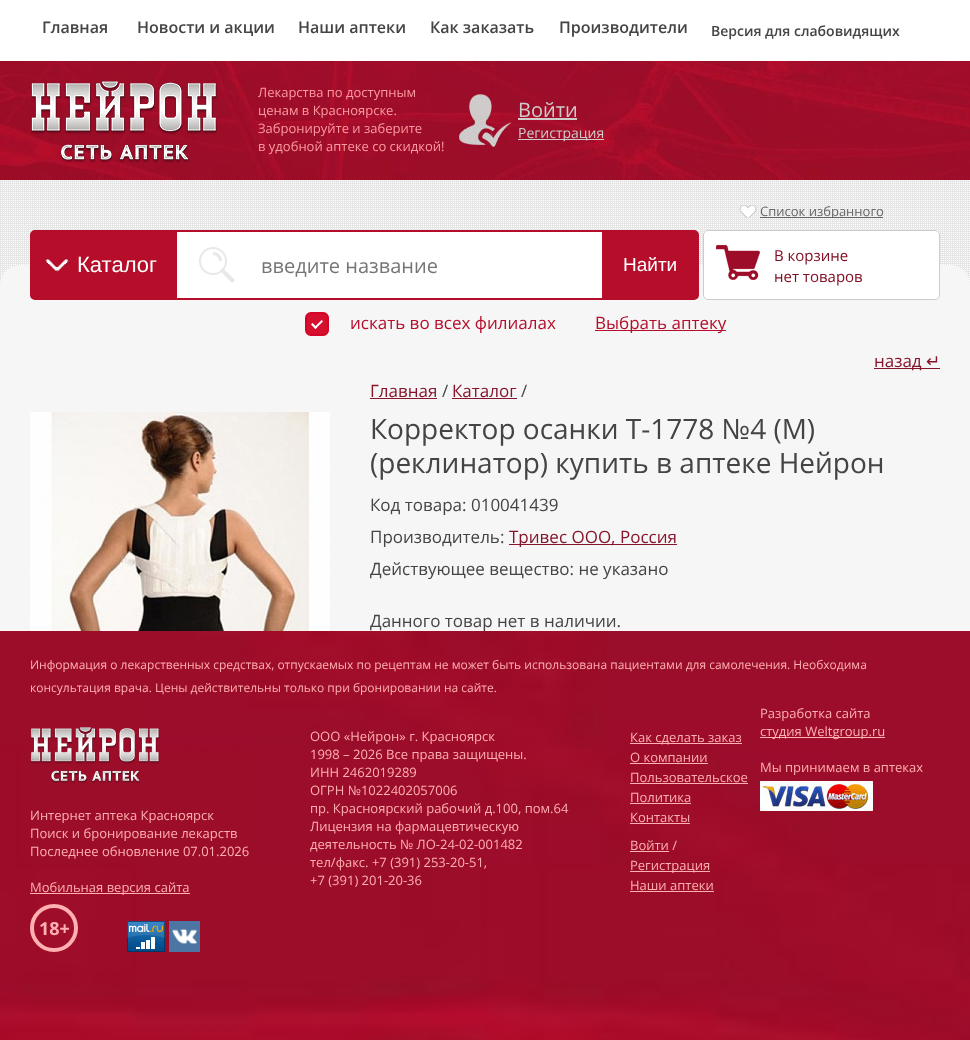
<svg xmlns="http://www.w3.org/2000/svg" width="970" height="1040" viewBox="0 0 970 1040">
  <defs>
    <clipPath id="clip1"><rect x="704" y="205" width="235" height="13"/></clipPath>
  </defs>
  <rect width="100%" height="100%" fill="rgb(255,255,255)"/>
  <image x="0" y="180" width="970" height="105" href="pic1.png"/>
  <g font-family="Open Sans" font-size="16" font-weight="600" fill="rgb(68,68,68)">
    <text x="42" y="33">Главная</text>
    <text x="137" y="33">Новости и акции</text>
    <text x="298" y="33">Наши аптеки</text>
    <text x="430" y="33">Как заказать</text>
    <text x="559" y="33">Производители</text>
  </g>
  <text x="711" y="36" font-family="Open Sans" font-size="14" font-weight="600" fill="rgb(68,68,68)">Версия для слабовидящих</text>
  <image x="0" y="61" width="970" height="119" href="pic2.png"/>
  <image x="31" y="81" width="186" height="82" href="pic3.png"/>
  <g font-family="Open Sans" font-size="13" fill="rgb(255,155,161)">
    <text>
      <tspan x="258" y="97">Лекарства по доступным</tspan>
      <tspan x="258" y="115">ценам в Красноярске.</tspan>
      <tspan x="258" y="133">Забронируйте и заберите</tspan>
      <tspan x="258" y="151">в удобной аптеке со скидкой!</tspan>
    </text>
  </g>
  <image x="458" y="94" width="53" height="54" href="pic4.png"/>
  <text x="518" y="117" font-family="Open Sans" font-size="20" fill="rgb(207,203,202)">Войти</text>
  <rect x="518" y="118" width="59" height="2" fill="rgb(207,203,202)"/>
  <rect x="518" y="139" width="86" height="1" fill="rgb(207,203,202)"/>
  <text x="518" y="138" font-family="Open Sans" font-size="14" fill="rgb(207,203,202)">Регистрация</text>
  <path d="M20 265H950C961 265 970 274 970 285V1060H0V285C0 274 9 265 20 265Z" fill="rgb(246,246,246)"/>
  <rect x="31" y="231" width="667" height="68" rx="4" fill="rgb(255,255,255)" stroke="rgb(181,13,42)" stroke-width="2"/>
  <rect x="32" y="232" width="145" height="66" fill="rgb(181,13,42)"/>
  <image x="45" y="257" width="24" height="15" href="pic5.png"/>
  <text x="77" y="272" font-family="Liberation Sans" font-size="22" fill="rgb(255,255,255)">Каталог</text>
  <image x="199" y="247" width="36" height="36" href="pic6.png"/>
  <text x="261" y="273" font-family="Open Sans" font-size="20" fill="rgb(117,117,117)">введите название</text>
  <rect x="602" y="232" width="95" height="66" fill="rgb(181,13,42)"/>
  <text x="623" y="271" font-family="Liberation Sans" font-size="19" fill="rgb(255,255,255)">Найти</text>
  <rect x="703" y="230" width="237" height="70" rx="5" fill="rgb(255,255,255)"/>
  <image x="715" y="243" width="48" height="37" href="pic7.png"/>
  <rect x="703.5" y="230.5" width="236" height="69" rx="4.5" fill="none" stroke="rgb(204,204,204)"/>
  <image x="739" y="205" width="18" height="13" href="pic8.png"/>
  <rect x="760" y="217" width="123" height="1" fill="rgb(102,102,102)"/>
  <g clip-path="url(#clip1)">
    <text x="760" y="216" font-family="Open Sans" font-size="13" fill="rgb(102,102,102)">Список избранного</text>
  </g>
  <g font-family="Open Sans" font-size="15" fill="rgb(129,15,36)">
    <text>
      <tspan x="774" y="261">В корзине</tspan>
      <tspan x="774" y="282">нет товаров</tspan>
    </text>
  </g>
  <image x="305" y="312" width="24" height="24" href="pic9.png"/>
  <text x="350" y="329" font-family="Open Sans" font-size="17" fill="rgb(181,13,42)">искать во всех филиалах</text>
  <rect x="595" y="330" width="131" height="1" fill="rgb(181,13,42)"/>
  <text x="595" y="329" font-family="Open Sans" font-size="17" fill="rgb(181,13,42)">Выбрать аптеку</text>
  <rect x="874" y="368" width="66" height="1" fill="rgb(134,21,44)"/>
  <text x="874" y="367" font-family="Open Sans" font-size="17" fill="rgb(134,21,44)">назад</text>
  <text x="926" y="367" font-family="DejaVu Sans" font-size="17" fill="rgb(134,21,44)">↵</text>
  <text x="370" y="397" font-family="Open Sans" font-size="17" fill="rgb(134,21,44)">Главная</text>
  <rect x="370" y="398" width="67" height="1" fill="rgb(134,21,44)"/>
  <text x="442" y="397" font-family="Open Sans" font-size="17" fill="rgb(68,68,68)">/</text>
  <text x="452" y="397" font-family="Open Sans" font-size="17" fill="rgb(134,21,44)">Каталог</text>
  <rect x="452" y="398" width="65" height="1" fill="rgb(134,21,44)"/>
  <text x="521" y="397" font-family="Open Sans" font-size="17" fill="rgb(68,68,68)">/</text>
  <image x="30" y="412" width="300" height="219" href="pic10.png"/>
  <g font-family="Open Sans" font-size="28" fill="rgb(68,68,68)">
    <text>
      <tspan x="370" y="439">Корректор осанки Т-1778 №4 (M)</tspan>
      <tspan x="370" y="473">(реклинатор) купить в аптеке Нейрон</tspan>
    </text>
  </g>
  <g font-family="Open Sans" font-size="17" fill="rgb(68,68,68)">
    <text>
      <tspan x="370" y="511">Код товара: 010041439</tspan>
      <tspan x="370" y="543">Производитель:</tspan>
    </text>
  </g>
  <rect x="509" y="544" width="168" height="1" fill="rgb(134,21,44)"/>
  <text x="509" y="543" font-family="Open Sans" font-size="17" fill="rgb(134,21,44)">Тривес ООО, Россия</text>
  <g font-family="Open Sans" font-size="17" fill="rgb(68,68,68)">
    <text x="370" y="575">Действующее вещество: не указано</text>
    <text x="370" y="627">Данного товар нет в наличии.</text>
  </g>
  <image x="0" y="631" width="970" height="409" href="pic11.png"/>
  <g font-family="Open Sans" font-size="12" fill="rgb(255,176,176)">
    <text>
      <tspan x="30" y="669">Информация о лекарственных средствах, отпускаемых по рецептам не может быть использована пациентами для самолечения. Необходима</tspan>
      <tspan x="30" y="692">консультация врача. Цены действительны только при бронировании на сайте.</tspan>
    </text>
  </g>
  <image x="30" y="727" width="130" height="56" href="pic12.png"/>
  <g font-family="Open Sans" font-size="13" fill="rgb(255,176,176)">
    <text>
      <tspan x="30" y="820">Интернет аптека Красноярск</tspan>
      <tspan x="30" y="838">Поиск и бронирование лекарств</tspan>
      <tspan x="30" y="856">Последнее обновление 07.01.2026</tspan>
    </text>
  </g>
  <rect x="30" y="893" width="160" height="1" fill="rgb(255,176,176)"/>
  <text x="30" y="892" font-family="Open Sans" font-size="13" fill="rgb(255,176,176)">Мобильная версия сайта</text>
  <circle cx="54" cy="928" r="22" fill="none" stroke="rgb(255,176,176)" stroke-width="4"/>
  <text x="39" y="935" font-family="Open Sans" font-size="18" font-weight="bold" fill="rgb(255,176,176)">18+</text>
  <image x="127" y="921" width="38" height="31" href="pic13.png"/>
  <image x="169" y="921" width="31" height="31" href="pic14.png"/>
  <g font-family="Open Sans" font-size="13" fill="rgb(255,176,176)">
    <text>
      <tspan x="310" y="741">ООО «Нейрон» г. Красноярск</tspan>
      <tspan x="310" y="759">1998 – 2026 Все права защищены.</tspan>
      <tspan x="310" y="777">ИНН 2462019289</tspan>
      <tspan x="310" y="795">ОГРН №1022402057006</tspan>
      <tspan x="310" y="813">пр. Красноярский рабочий д.100, пом.64</tspan>
      <tspan x="310" y="831">Лицензия на фармацевтическую</tspan>
      <tspan x="310" y="849">деятельность № ЛО-24-02-001482</tspan>
      <tspan x="310" y="867">тел/факс. +7 (391) 253-20-51,</tspan>
      <tspan x="310" y="885">+7 (391) 201-20-36</tspan>
    </text>
  </g>
  <rect x="630" y="743" width="112" height="1" fill="rgb(255,176,176)"/>
  <g font-family="Open Sans" font-size="13" fill="rgb(255,176,176)">
    <text>
      <tspan x="630" y="742">Как сделать заказ</tspan>
      <tspan x="630" y="762">О компании</tspan>
    </text>
  </g>
  <rect x="630" y="763" width="78" height="1" fill="rgb(255,176,176)"/>
  <text x="630" y="782" font-family="Open Sans" font-size="13" fill="rgb(255,176,176)">Пользовательское</text>
  <rect x="630" y="783" width="118" height="1" fill="rgb(255,176,176)"/>
  <text x="630" y="802" font-family="Open Sans" font-size="13" fill="rgb(255,176,176)">Политика</text>
  <rect x="630" y="803" width="61" height="1" fill="rgb(255,176,176)"/>
  <text x="630" y="822" font-family="Open Sans" font-size="13" fill="rgb(255,176,176)">Контакты</text>
  <rect x="630" y="823" width="60" height="1" fill="rgb(255,176,176)"/>
  <text x="630" y="850" font-family="Open Sans" font-size="13" fill="rgb(255,176,176)">Войти /</text>
  <rect x="630" y="851" width="39" height="1" fill="rgb(255,176,176)"/>
  <rect x="630" y="871" width="80" height="1" fill="rgb(255,176,176)"/>
  <g font-family="Open Sans" font-size="13" fill="rgb(255,176,176)">
    <text>
      <tspan x="630" y="870">Регистрация</tspan>
      <tspan x="630" y="890">Наши аптеки</tspan>
    </text>
  </g>
  <rect x="630" y="891" width="84" height="1" fill="rgb(255,176,176)"/>
  <text x="760" y="718" font-family="Open Sans" font-size="13" fill="rgb(255,176,176)">Разработка сайта</text>
  <rect x="760" y="737" width="125" height="1" fill="rgb(255,176,176)"/>
  <g font-family="Open Sans" font-size="13" fill="rgb(255,176,176)">
    <text x="760" y="736">студия Weltgroup.ru</text>
    <text x="760" y="772">Мы принимаем в аптеках</text>
  </g>
  <image x="760" y="781" width="113" height="30" href="pic15.png"/>
</svg>
